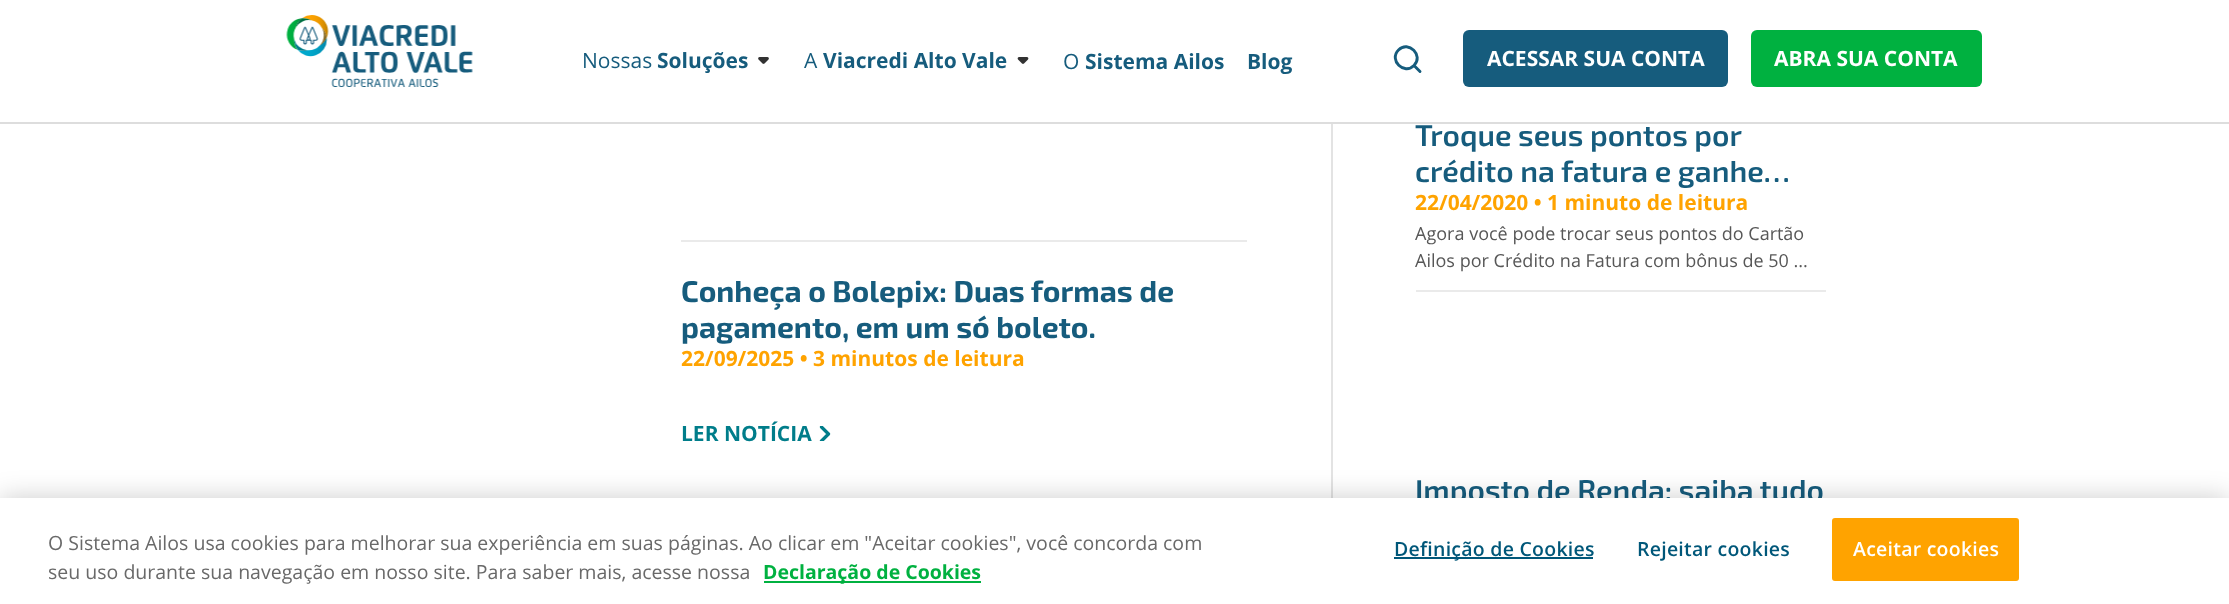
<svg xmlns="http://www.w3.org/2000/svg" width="2229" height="604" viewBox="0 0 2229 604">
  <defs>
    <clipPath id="clip1"><rect x="819" y="426" width="12" height="15"/></clipPath>
  </defs>
  <rect width="100%" height="100%" fill="rgb(255,255,255)"/>
  <rect x="0" y="122" width="2229" height="2" fill="rgb(221,221,221)"/>
  <image x="286" y="15" width="187" height="72" href="pic1.png"/>
  <image x="758" y="57" width="11" height="7" href="pic2.png"/>
  <text x="582" y="68" font-family="Open Sans" font-size="21" fill="rgb(22,92,125)">Nossas</text>
  <text x="657" y="68" font-family="Open Sans" font-size="21" font-weight="bold" fill="rgb(22,92,125)">Soluções</text>
  <image x="1017" y="57" width="12" height="7" href="pic3.png"/>
  <text x="804" y="68" font-family="Open Sans" font-size="21" fill="rgb(22,92,125)">A</text>
  <text x="823" y="68" font-family="Open Sans" font-size="21" font-weight="bold" fill="rgb(22,92,125)">Viacredi Alto Vale</text>
  <text x="1063" y="69" font-family="Open Sans" font-size="21" fill="rgb(22,92,125)">O</text>
  <g font-family="Open Sans" font-size="21" font-weight="bold" fill="rgb(22,92,125)">
    <text x="1085" y="69">Sistema Ailos</text>
    <text x="1247" y="69">Blog</text>
  </g>
  <path d="M1398.5 50C1408.5 40 1424 55.5 1414 65.5C1404 75.5 1388.5 60 1398.5 50ZM1414 65.5L1420 71.5" fill="none" stroke="rgb(22,92,125)" stroke-width="2.9" stroke-linecap="round"/>
  <rect x="1463" y="30" width="265" height="57" rx="6" fill="rgb(22,92,125)"/>
  <text x="1487" y="66" font-family="Open Sans" font-size="21" font-weight="bold" fill="rgb(255,255,255)">ACESSAR SUA CONTA</text>
  <rect x="1751" y="30" width="231" height="57" rx="6" fill="rgb(0,177,64)"/>
  <text x="1774" y="66" font-family="Open Sans" font-size="21" font-weight="bold" fill="rgb(255,255,255)">ABRA SUA CONTA</text>
  <rect x="681" y="240" width="566" height="2" fill="rgb(234,234,234)"/>
  <g font-family="'Exo 2'" font-size="30" font-weight="bold" fill="rgb(22,92,125)">
    <text>
      <tspan x="681" y="302">Conheça o Bolepix: Duas formas de</tspan>
      <tspan x="681" y="338">pagamento, em um só boleto.</tspan>
    </text>
  </g>
  <text x="681" y="366" font-family="Open Sans" font-size="21" font-weight="bold" fill="rgb(255,163,0)">22/09/2025 • 3 minutos de leitura</text>
  <text x="681" y="441" font-family="Open Sans" font-size="21" font-weight="bold" fill="rgb(0,125,138)">LER NOTÍCIA</text>
  <g clip-path="url(#clip1)">
    <path d="M828.5 434L821.5 441M828.5 434L821.5 427" fill="none" stroke="rgb(0,125,138)" stroke-width="3.3" stroke-linecap="round"/>
  </g>
  <rect x="1331" y="124" width="2" height="374" fill="rgb(227,227,227)"/>
  <g font-family="'Exo 2'" font-size="30" font-weight="600" fill="rgb(22,92,125)">
    <text>
      <tspan x="1415" y="146">Troque seus pontos por</tspan>
      <tspan x="1415" y="182">crédito na fatura e ganhe…</tspan>
    </text>
  </g>
  <text x="1415" y="210" font-family="Open Sans" font-size="21" font-weight="bold" fill="rgb(255,163,0)">22/04/2020 • 1 minuto de leitura</text>
  <rect x="1416" y="290" width="410" height="2" fill="rgb(234,234,234)"/>
  <g font-family="Open Sans" font-size="18" fill="rgb(87,87,87)">
    <text>
      <tspan x="1415" y="240">Agora você pode trocar seus pontos do Cartão</tspan>
      <tspan x="1415" y="267">Ailos por Crédito na Fatura com bônus de 50 ...</tspan>
    </text>
  </g>
  <text x="1415" y="501" font-family="'Exo 2'" font-size="30" font-weight="600" fill="rgb(22,92,125)">Imposto de Renda: saiba tudo</text>
  <rect x="0" y="498" width="2229" height="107" fill="rgba(0,0,0,0.2)" filter="blur(13.5px)"/>
  <rect x="0" y="498" width="2229" height="106" fill="rgb(255,255,255)"/>
  <g font-family="Open Sans" font-size="19.5" fill="rgb(105,105,105)">
    <text>
      <tspan x="48" y="550">O Sistema Ailos usa cookies para melhorar sua experiência em suas páginas. Ao clicar em "Aceitar cookies", você concorda com</tspan>
      <tspan x="48" y="579">seu uso durante sua navegação em nosso site. Para saber mais, acesse nossa</tspan>
    </text>
  </g>
  <rect x="764" y="581" width="217" height="2" fill="rgb(0,177,64)"/>
  <text x="763" y="579" font-family="Open Sans" font-size="19.5" font-weight="bold" fill="rgb(0,177,64)">Declaração de Cookies</text>
  <rect x="1394" y="557" width="199" height="2" fill="rgb(0,87,121)"/>
  <g font-family="Open Sans" font-size="19.5" font-weight="600" letter-spacing="0.25" fill="rgb(0,87,121)">
    <text x="1394" y="556">Definição de Cookies</text>
    <text x="1637" y="556">Rejeitar cookies</text>
  </g>
  <rect x="1833" y="519" width="185" height="61" rx="2" fill="rgb(255,163,0)" stroke="rgb(255,163,0)" stroke-width="2"/>
  <text x="1853" y="556" font-family="Open Sans" font-size="19.5" font-weight="600" letter-spacing="0.25" fill="rgb(255,255,255)">Aceitar cookies</text>
</svg>
